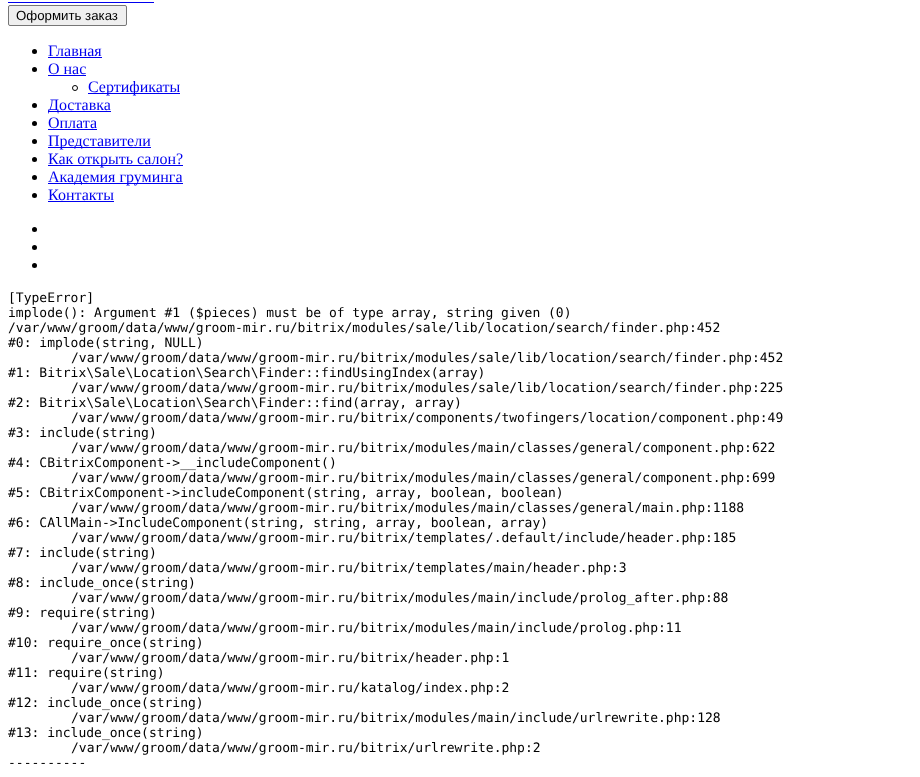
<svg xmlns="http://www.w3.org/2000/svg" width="920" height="777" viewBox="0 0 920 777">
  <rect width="100%" height="100%" fill="rgb(255,255,255)"/>
  <rect x="8" y="2" width="146" height="1" fill="rgb(0,0,238)"/>
  <rect x="8.5" y="5.5" width="118" height="20" rx="1.5" fill="rgb(239,239,239)" stroke="rgb(118,118,118)"/>
  <text x="16" y="20" font-family="Liberation Sans" font-size="13.25" fill="rgb(0,0,0)">Оформить заказ</text>
  <circle cx="34.5" cy="51.5" r="2.5" fill="rgb(0,0,0)"/>
  <text x="48" y="56" font-family="Liberation Serif" font-size="16" fill="rgb(0,0,238)">Главная</text>
  <rect x="48" y="57" width="54" height="1" fill="rgb(0,0,238)"/>
  <circle cx="34.5" cy="69.5" r="2.5" fill="rgb(0,0,0)"/>
  <text x="48" y="74" font-family="Liberation Serif" font-size="16" fill="rgb(0,0,238)">О нас</text>
  <rect x="48" y="75" width="38" height="1" fill="rgb(0,0,238)"/>
  <circle cx="75" cy="88" r="2.5" fill="none" stroke="rgb(0,0,0)"/>
  <rect x="88" y="93" width="92" height="1" fill="rgb(0,0,238)"/>
  <text x="88" y="92" font-family="Liberation Serif" font-size="16" fill="rgb(0,0,238)">Сертификаты</text>
  <circle cx="34.5" cy="105.5" r="2.5" fill="rgb(0,0,0)"/>
  <rect x="48" y="111" width="63" height="1" fill="rgb(0,0,238)"/>
  <text x="48" y="110" font-family="Liberation Serif" font-size="16" fill="rgb(0,0,238)">Доставка</text>
  <circle cx="34.5" cy="123.5" r="2.5" fill="rgb(0,0,0)"/>
  <text x="48" y="128" font-family="Liberation Serif" font-size="16" fill="rgb(0,0,238)">Оплата</text>
  <rect x="48" y="129" width="49" height="1" fill="rgb(0,0,238)"/>
  <circle cx="34.5" cy="141.5" r="2.5" fill="rgb(0,0,0)"/>
  <rect x="48" y="147" width="103" height="1" fill="rgb(0,0,238)"/>
  <text x="48" y="146" font-family="Liberation Serif" font-size="16" fill="rgb(0,0,238)">Представители</text>
  <circle cx="34.5" cy="159.5" r="2.5" fill="rgb(0,0,0)"/>
  <rect x="48" y="165" width="135" height="1" fill="rgb(0,0,238)"/>
  <text x="48" y="164" font-family="Liberation Serif" font-size="16" fill="rgb(0,0,238)">Как открыть салон?</text>
  <circle cx="34.5" cy="177.5" r="2.5" fill="rgb(0,0,0)"/>
  <rect x="48" y="183" width="135" height="1" fill="rgb(0,0,238)"/>
  <text x="48" y="182" font-family="Liberation Serif" font-size="16" fill="rgb(0,0,238)">Академия груминга</text>
  <circle cx="34.5" cy="195.5" r="2.5" fill="rgb(0,0,0)"/>
  <text x="48" y="200" font-family="Liberation Serif" font-size="16" fill="rgb(0,0,238)">Контакты</text>
  <rect x="48" y="201" width="66" height="1" fill="rgb(0,0,238)"/>
  <circle cx="34.5" cy="229.5" r="2.5" fill="rgb(0,0,0)"/>
  <circle cx="34.5" cy="247.5" r="2.5" fill="rgb(0,0,0)"/>
  <circle cx="34.5" cy="265.5" r="2.5" fill="rgb(0,0,0)"/>
  <g font-family="DejaVu Sans Mono" font-size="13" fill="rgb(0,0,0)">
    <text>
      <tspan x="8" y="302">[TypeError]</tspan>
      <tspan x="8" y="317">implode(): Argument #1 ($pieces) must be of type array, string given (0)</tspan>
      <tspan x="8" y="332">/var/www/groom/data/www/groom-mir.ru/bitrix/modules/sale/lib/location/search/finder.php:452</tspan>
      <tspan x="8" y="347">#0: implode(string, NULL)</tspan>
    </text>
    <text x="71" y="362">/var/www/groom/data/www/groom-mir.ru/bitrix/modules/sale/lib/location/search/finder.php:452</text>
    <text x="8" y="377">#1: Bitrix\Sale\Location\Search\Finder::findUsingIndex(array)</text>
    <text x="71" y="392">/var/www/groom/data/www/groom-mir.ru/bitrix/modules/sale/lib/location/search/finder.php:225</text>
    <text x="8" y="407">#2: Bitrix\Sale\Location\Search\Finder::find(array, array)</text>
    <text x="71" y="422">/var/www/groom/data/www/groom-mir.ru/bitrix/components/twofingers/location/component.php:49</text>
    <text x="8" y="437">#3: include(string)</text>
    <text x="71" y="452">/var/www/groom/data/www/groom-mir.ru/bitrix/modules/main/classes/general/component.php:622</text>
    <text x="8" y="467">#4: CBitrixComponent-&gt;__includeComponent()</text>
    <text x="71" y="482">/var/www/groom/data/www/groom-mir.ru/bitrix/modules/main/classes/general/component.php:699</text>
    <text x="8" y="497">#5: CBitrixComponent-&gt;includeComponent(string, array, boolean, boolean)</text>
    <text x="71" y="512">/var/www/groom/data/www/groom-mir.ru/bitrix/modules/main/classes/general/main.php:1188</text>
    <text x="8" y="527">#6: CAllMain-&gt;IncludeComponent(string, string, array, boolean, array)</text>
    <text x="71" y="542">/var/www/groom/data/www/groom-mir.ru/bitrix/templates/.default/include/header.php:185</text>
    <text x="8" y="557">#7: include(string)</text>
    <text x="71" y="572">/var/www/groom/data/www/groom-mir.ru/bitrix/templates/main/header.php:3</text>
    <text x="8" y="587">#8: include_once(string)</text>
    <text x="71" y="602">/var/www/groom/data/www/groom-mir.ru/bitrix/modules/main/include/prolog_after.php:88</text>
    <text x="8" y="617">#9: require(string)</text>
    <text x="71" y="632">/var/www/groom/data/www/groom-mir.ru/bitrix/modules/main/include/prolog.php:11</text>
    <text x="8" y="647">#10: require_once(string)</text>
    <text x="71" y="662">/var/www/groom/data/www/groom-mir.ru/bitrix/header.php:1</text>
    <text x="8" y="677">#11: require(string)</text>
    <text x="71" y="692">/var/www/groom/data/www/groom-mir.ru/katalog/index.php:2</text>
    <text x="8" y="707">#12: include_once(string)</text>
    <text x="71" y="722">/var/www/groom/data/www/groom-mir.ru/bitrix/modules/main/include/urlrewrite.php:128</text>
    <text x="8" y="737">#13: include_once(string)</text>
    <text x="71" y="752">/var/www/groom/data/www/groom-mir.ru/bitrix/urlrewrite.php:2</text>
    <text x="8" y="767">----------</text>
  </g>
</svg>
